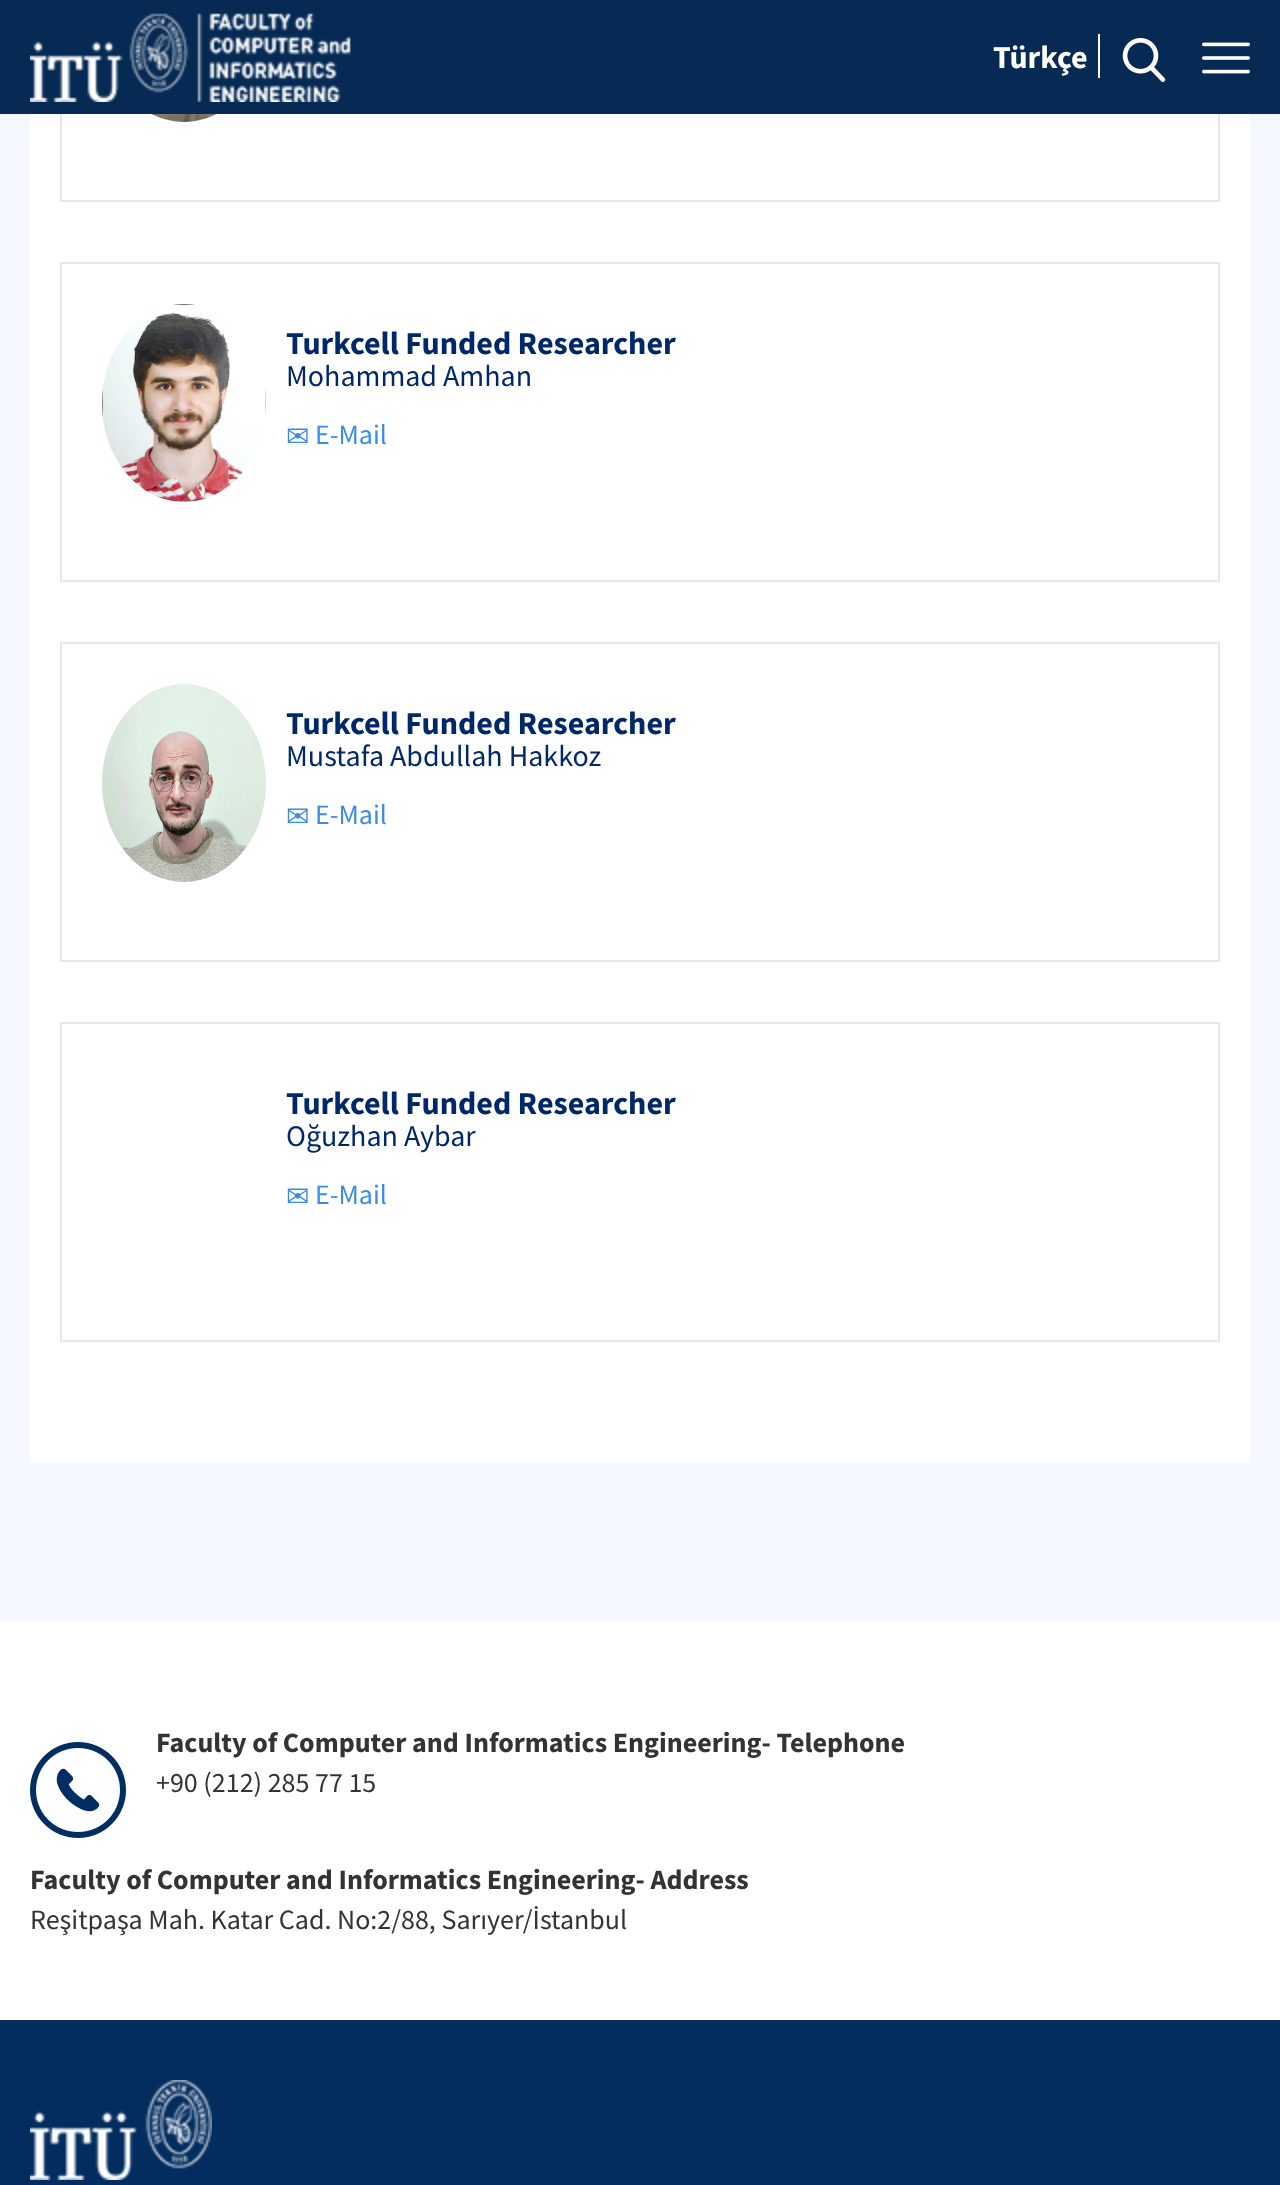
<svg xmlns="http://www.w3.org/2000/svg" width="1280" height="2185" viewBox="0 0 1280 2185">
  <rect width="100%" height="100%" fill="rgb(245,248,254)"/>
  <rect x="30" y="114" width="1220" height="1348" fill="rgb(255,255,255)"/>
  <rect x="61" y="-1" width="1158" height="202" fill="none" stroke="rgb(231,231,231)" stroke-width="2"/>
  <rect x="0" y="0" width="1280" height="114" fill="rgb(6,42,84)"/>
  <image x="30" y="13" width="321" height="89" href="pic1.png"/>
  <text x="993" y="68" font-family="Source Sans Pro" font-size="32" font-weight="bold" fill="rgb(255,255,255)">Türkçe</text>
  <rect x="1098" y="34" width="2" height="44" fill="rgb(255,255,255)"/>
  <image x="1122" y="38" width="44" height="44" href="pic2.png"/>
  <image x="1202" y="42" width="48" height="32" href="pic3.png"/>
  <image x="152" y="114" width="64" height="8" href="pic4.png"/>
  <rect x="61" y="263" width="1158" height="318" fill="none" stroke="rgb(231,231,231)" stroke-width="2"/>
  <image x="102" y="304" width="164" height="198" href="pic5.png"/>
  <text x="286" y="354" font-family="Source Sans Pro" font-size="32" font-weight="bold" fill="rgb(0,40,104)">Turkcell Funded Researcher</text>
  <text x="286" y="386" font-family="Source Sans Pro" font-size="30" fill="rgb(0,40,104)">Mohammad Amhan</text>
  <text x="286" y="446" font-family="DejaVu Sans" font-size="28" fill="rgb(59,140,234)">✉</text>
  <text x="315" y="444" font-family="Source Sans Pro" font-size="28" fill="rgb(59,140,234)">E-Mail</text>
  <rect x="61" y="643" width="1158" height="318" fill="none" stroke="rgb(231,231,231)" stroke-width="2"/>
  <image x="102" y="684" width="164" height="198" href="pic6.png"/>
  <text x="286" y="734" font-family="Source Sans Pro" font-size="32" font-weight="bold" fill="rgb(0,40,104)">Turkcell Funded Researcher</text>
  <text x="286" y="766" font-family="Source Sans Pro" font-size="30" fill="rgb(0,40,104)">Mustafa Abdullah Hakkoz</text>
  <text x="286" y="826" font-family="DejaVu Sans" font-size="28" fill="rgb(59,140,234)">✉</text>
  <text x="315" y="824" font-family="Source Sans Pro" font-size="28" fill="rgb(59,140,234)">E-Mail</text>
  <rect x="61" y="1023" width="1158" height="318" fill="none" stroke="rgb(231,231,231)" stroke-width="2"/>
  <text x="286" y="1114" font-family="Source Sans Pro" font-size="32" font-weight="bold" fill="rgb(0,40,104)">Turkcell Funded Researcher</text>
  <text x="286" y="1146" font-family="Source Sans Pro" font-size="30" fill="rgb(0,40,104)">Oğuzhan Aybar</text>
  <text x="286" y="1206" font-family="DejaVu Sans" font-size="28" fill="rgb(59,140,234)">✉</text>
  <text x="315" y="1204" font-family="Source Sans Pro" font-size="28" fill="rgb(59,140,234)">E-Mail</text>
  <rect x="0" y="1622" width="1280" height="398" fill="rgb(255,255,255)"/>
  <image x="30" y="1742" width="96" height="96" href="pic7.png"/>
  <text x="156" y="1752" font-family="Source Sans Pro" font-size="28" font-weight="bold" fill="rgb(51,51,51)">Faculty of Computer and Informatics Engineering- Telephone</text>
  <text x="156" y="1792" font-family="Source Sans Pro" font-size="28" fill="rgb(51,51,51)">+90 (212) 285 77 15</text>
  <text x="30" y="1889" font-family="Source Sans Pro" font-size="28" font-weight="bold" fill="rgb(51,51,51)">Faculty of Computer and Informatics Engineering- Address</text>
  <text x="30" y="1929" font-family="Source Sans Pro" font-size="28" fill="rgb(51,51,51)">Reşitpaşa Mah. Katar Cad. No:2/88, Sarıyer/İstanbul</text>
  <rect x="0" y="2020" width="1280" height="165" fill="rgb(3,45,95)"/>
  <image x="30" y="2080" width="182" height="100" href="pic8.png"/>
</svg>
